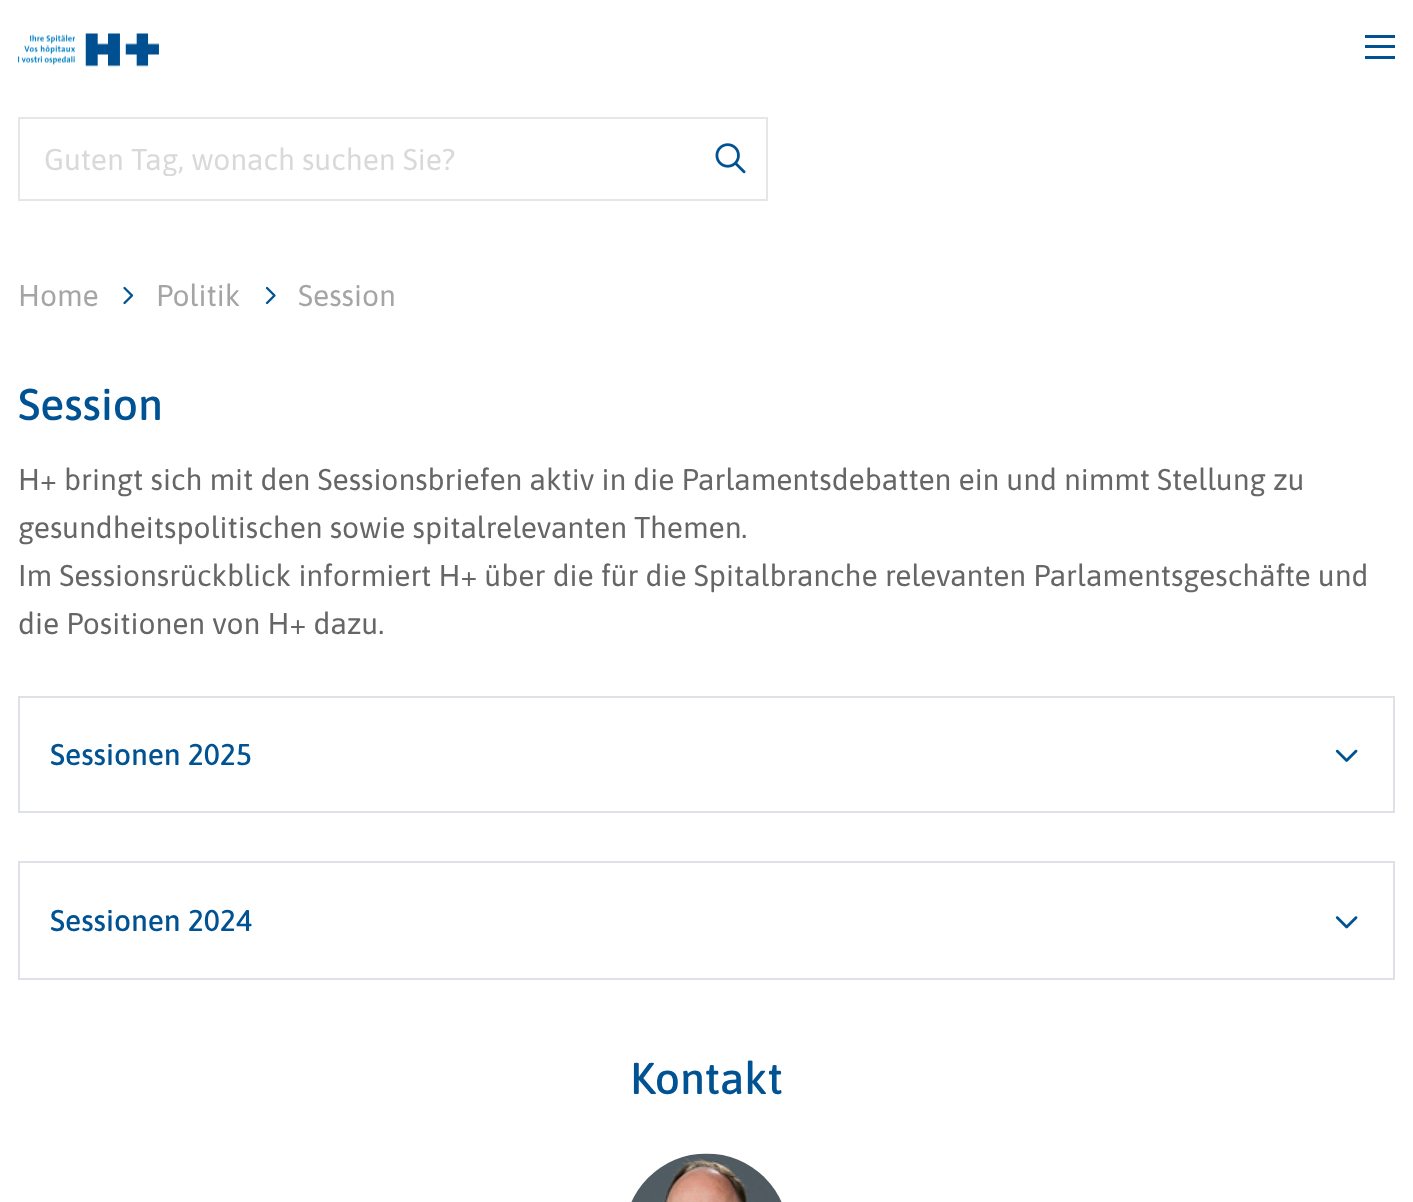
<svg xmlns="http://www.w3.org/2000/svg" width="1413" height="1202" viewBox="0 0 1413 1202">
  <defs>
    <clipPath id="clip1"><rect x="44" y="141" width="651" height="35"/></clipPath>
  </defs>
  <rect width="100%" height="100%" fill="rgb(255,255,255)"/>
  <image x="18" y="33" width="141" height="34" href="pic1.png"/>
  <rect x="1365" y="35" width="30" height="3" fill="rgb(0,82,146)"/>
  <rect x="1365" y="45" width="30" height="3" fill="rgb(0,82,146)"/>
  <rect x="1365" y="56" width="30" height="3" fill="rgb(0,82,146)"/>
  <rect x="19" y="118" width="748" height="82" fill="none" stroke="rgb(230,230,230)" stroke-width="2"/>
  <g clip-path="url(#clip1)">
    <text x="44" y="170" font-family="Asap" font-size="30" fill="rgb(217,217,217)">Guten Tag, wonach suchen Sie?</text>
  </g>
  <image x="715" y="143" width="31" height="31" href="pic2.png"/>
  <text x="18" y="306" font-family="Asap" font-size="30" fill="rgb(165,165,165)">Home</text>
  <image x="123" y="286" width="11" height="19" href="pic3.png"/>
  <text x="156" y="306" font-family="Asap" font-size="30" fill="rgb(165,165,165)">Politik</text>
  <image x="265" y="286" width="11" height="19" href="pic4.png"/>
  <text x="298" y="306" font-family="Asap" font-size="30" fill="rgb(165,165,165)">Session</text>
  <text x="18" y="420" font-family="Asap" font-size="44.5" font-weight="500" fill="rgb(0,82,146)">Session</text>
  <g font-family="Asap" font-size="30" fill="rgb(102,102,102)">
    <text>
      <tspan x="18" y="490">H+ bringt sich mit den Sessionsbriefen aktiv in die Parlamentsdebatten ein und nimmt Stellung zu</tspan>
      <tspan x="18" y="538">gesundheitspolitischen sowie spitalrelevanten Themen.</tspan>
      <tspan x="18" y="586">Im Sessionsrückblick informiert H+ über die für die Spitalbranche relevanten Parlamentsgeschäfte und</tspan>
      <tspan x="18" y="634">die Positionen von H+ dazu.</tspan>
    </text>
  </g>
  <rect x="19" y="697" width="1375" height="115" fill="none" stroke="rgb(222,226,230)" stroke-width="2"/>
  <text x="50" y="765" font-family="Asap" font-size="30" font-weight="500" fill="rgb(0,82,146)">Sessionen 2025</text>
  <image x="1335" y="749" width="23" height="13" href="pic5.png"/>
  <rect x="19" y="862" width="1375" height="117" fill="none" stroke="rgb(222,226,230)" stroke-width="2"/>
  <text x="50" y="931" font-family="Asap" font-size="30" font-weight="500" fill="rgb(0,82,146)">Sessionen 2024</text>
  <image x="1335" y="916" width="23" height="13" href="pic6.png"/>
  <text x="630" y="1094" font-family="Asap" font-size="44.5" font-weight="500" fill="rgb(0,82,146)">Kontakt</text>
  <image x="631" y="1153" width="151" height="49" href="pic7.png"/>
</svg>
